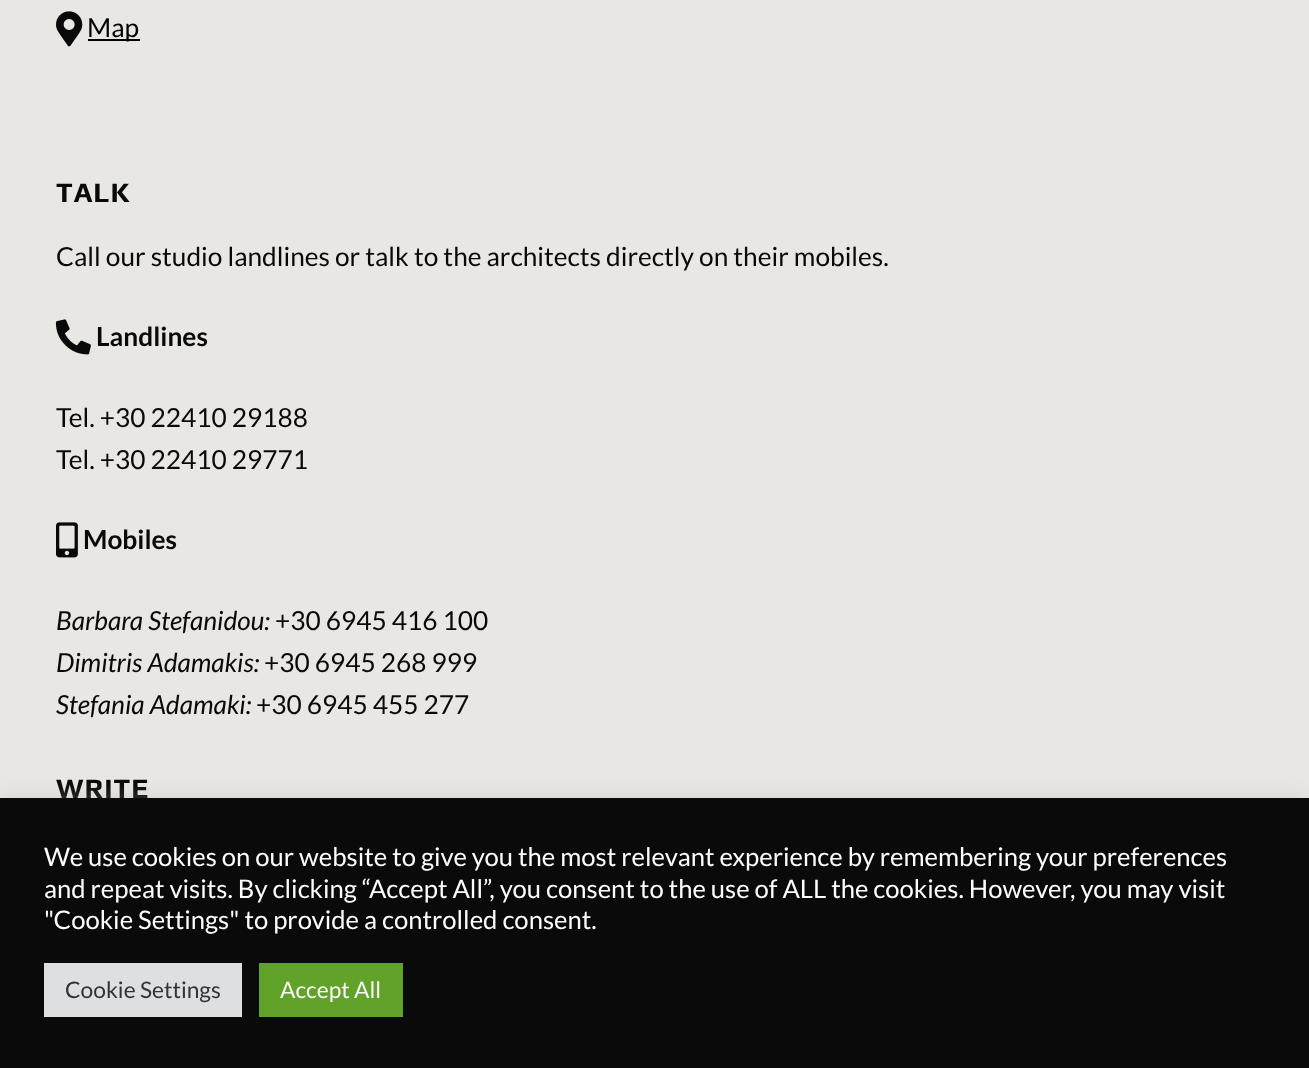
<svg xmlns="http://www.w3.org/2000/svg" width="1309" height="1068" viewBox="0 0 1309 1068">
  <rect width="100%" height="100%" fill="rgb(232,231,227)"/>
  <image x="56" y="11" width="27" height="36" href="pic1.png"/>
  <rect x="88" y="39" width="52" height="2" fill="rgb(0,0,0)"/>
  <text x="87" y="37" font-family="Lato" font-size="26.25" fill="rgb(0,0,0)">Map</text>
  <text x="56" y="202" font-family="Play" font-size="28" font-weight="bold" letter-spacing="1" fill="rgb(10,9,9)">TALK</text>
  <text x="56" y="266" font-family="Lato" font-size="26.25" fill="rgb(10,9,9)">Call our studio landlines or talk to the architects directly on their mobiles.</text>
  <image x="55" y="319" width="36" height="36" href="pic2.png"/>
  <text x="96" y="346" font-family="Lato" font-size="26.25" font-weight="bold" fill="rgb(10,9,9)">Landlines</text>
  <g font-family="Lato" font-size="26.25" fill="rgb(10,9,9)">
    <text>
      <tspan x="56" y="427">Tel. +30 22410 29188</tspan>
      <tspan x="56" y="469">Tel. +30 22410 29771</tspan>
    </text>
  </g>
  <image x="56" y="522" width="22" height="36" href="pic3.png"/>
  <text x="83" y="549" font-family="Lato" font-size="26.25" font-weight="bold" fill="rgb(10,9,9)">Mobiles</text>
  <text x="56" y="630" font-family="Lato" font-size="26.25" font-style="italic" fill="rgb(10,9,9)">Barbara Stefanidou:</text>
  <text x="275" y="630" font-family="Lato" font-size="26.25" fill="rgb(10,9,9)">+30 6945 416 100</text>
  <text x="56" y="672" font-family="Lato" font-size="26.25" font-style="italic" fill="rgb(10,9,9)">Dimitris Adamakis:</text>
  <text x="264" y="672" font-family="Lato" font-size="26.25" fill="rgb(10,9,9)">+30 6945 268 999</text>
  <text x="56" y="714" font-family="Lato" font-size="26.25" font-style="italic" fill="rgb(10,9,9)">Stefania Adamaki:</text>
  <text x="256" y="714" font-family="Lato" font-size="26.25" fill="rgb(10,9,9)">+30 6945 455 277</text>
  <text x="56" y="798" font-family="Play" font-size="28" font-weight="bold" letter-spacing="1" fill="rgb(10,9,9)">WRITE</text>
  <rect x="0" y="796" width="1309" height="272" fill="rgba(172,171,171,0.3)" filter="blur(9px)"/>
  <rect x="0" y="798" width="1309" height="270" fill="rgb(10,10,10)"/>
  <g font-family="Lato" font-size="25.65" fill="rgb(252,252,252)">
    <text>
      <tspan x="44" y="866">We use cookies on our website to give you the most relevant experience by remembering your preferences</tspan>
      <tspan x="44" y="898">and repeat visits. By clicking “Accept All”, you consent to the use of ALL the cookies. However, you may visit</tspan>
      <tspan x="44" y="929">"Cookie Settings" to provide a controlled consent.</tspan>
    </text>
  </g>
  <rect x="44" y="963" width="198" height="54" fill="rgb(222,223,224)"/>
  <text x="65" y="998" font-family="Lato" font-size="22.75" fill="rgb(51,51,51)">Cookie Settings</text>
  <rect x="259" y="963" width="144" height="54" fill="rgb(97,162,41)"/>
  <text x="280" y="998" font-family="Lato" font-size="22.75" fill="rgb(252,252,252)">Accept All</text>
</svg>
